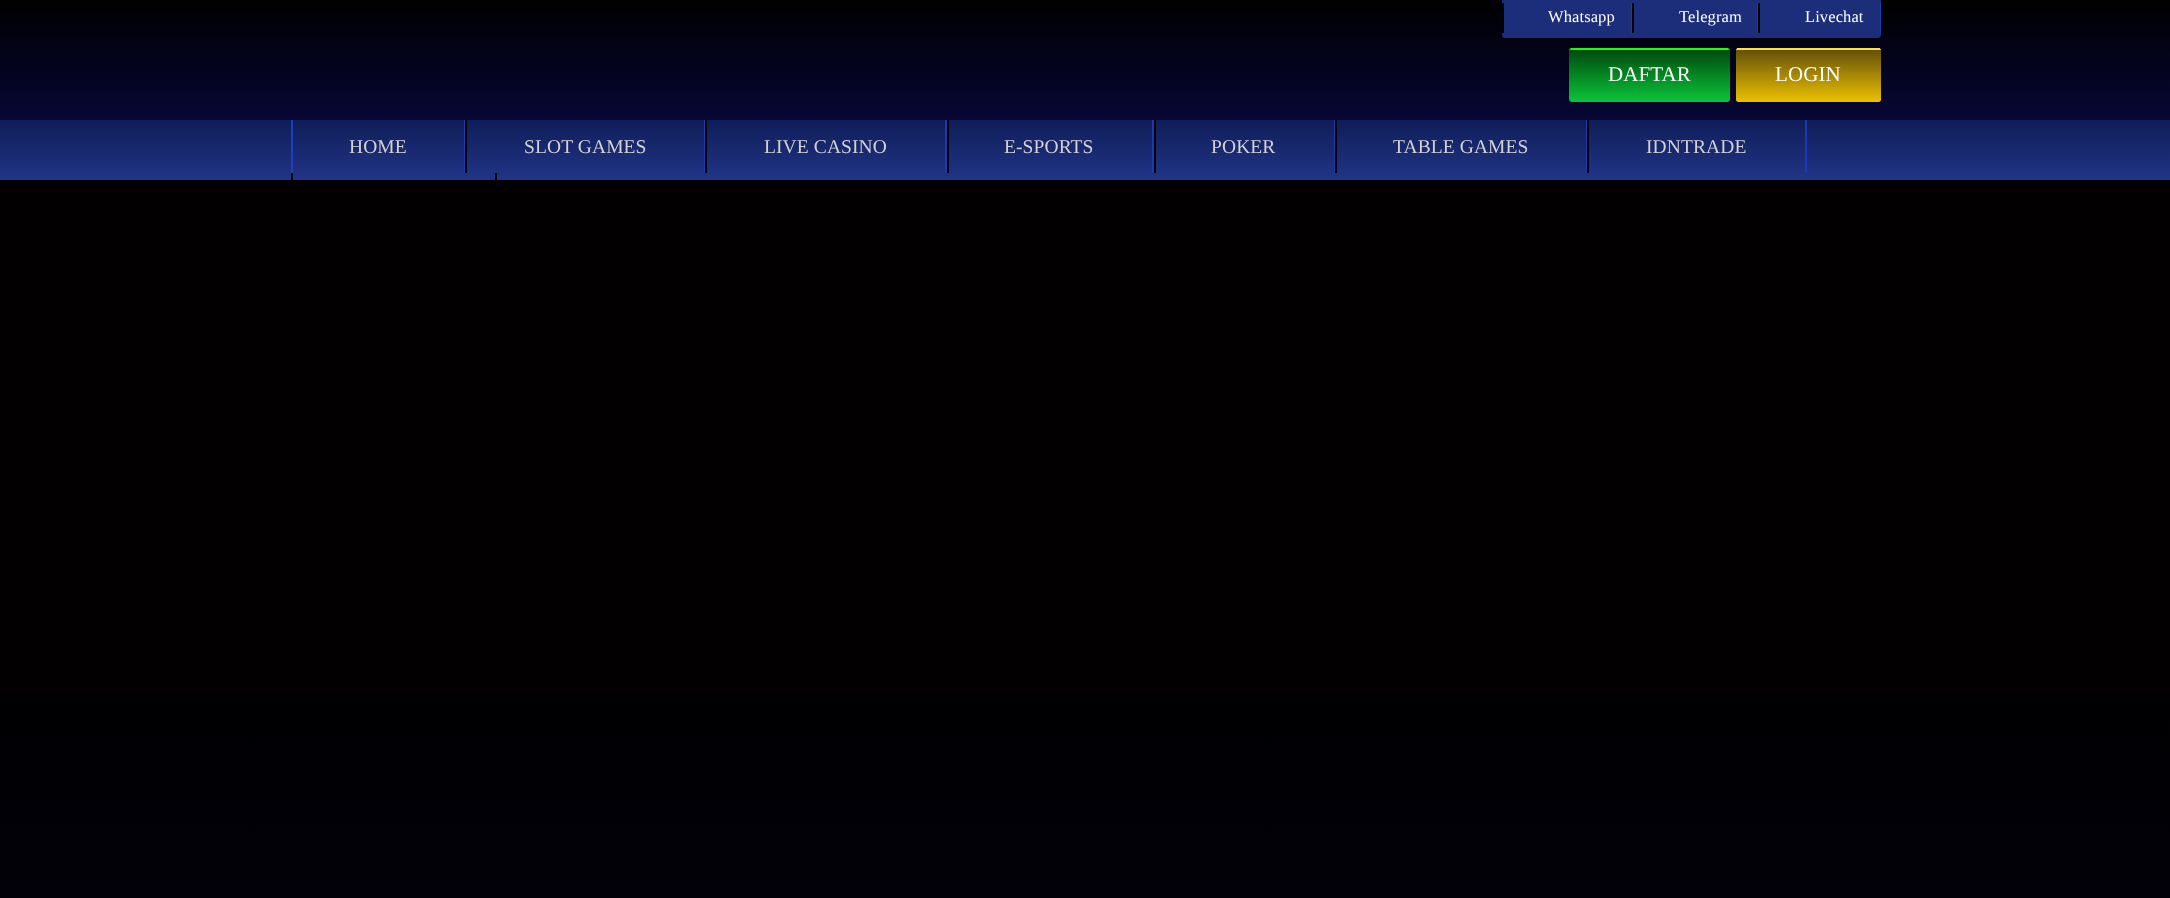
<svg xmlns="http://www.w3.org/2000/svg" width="2170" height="898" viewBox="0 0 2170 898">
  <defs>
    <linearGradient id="g1" gradientUnits="userSpaceOnUse" x1="1085" y1="180" x2="1085" y2="0"><stop offset="0" stop-color="rgb(3,0,43)"/><stop offset="0.16" stop-color="rgb(9,8,67)"/><stop offset="1" stop-color="rgb(0,0,0)"/></linearGradient>
    <clipPath id="clip1"><rect x="1569" y="48" width="161" height="54" rx="3"/></clipPath>
    <linearGradient id="g2" gradientUnits="userSpaceOnUse" x1="1649" y1="-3" x2="1649" y2="50"><stop offset="0" stop-color="rgb(0,73,12)"/><stop offset="1" stop-color="rgb(11,196,59)"/></linearGradient>
    <linearGradient id="g3" gradientUnits="userSpaceOnUse" x1="1649" y1="49" x2="1649" y2="102"><stop offset="0" stop-color="rgb(0,73,12)"/><stop offset="1" stop-color="rgb(11,196,59)"/></linearGradient>
    <clipPath id="clip2"><rect x="1736" y="48" width="145" height="54" rx="3"/></clipPath>
    <linearGradient id="g4" gradientUnits="userSpaceOnUse" x1="1808" y1="-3" x2="1808" y2="50"><stop offset="0" stop-color="rgb(98,79,9)"/><stop offset="1" stop-color="rgb(236,193,0)"/></linearGradient>
    <linearGradient id="g5" gradientUnits="userSpaceOnUse" x1="1808" y1="49" x2="1808" y2="102"><stop offset="0" stop-color="rgb(98,79,9)"/><stop offset="1" stop-color="rgb(236,193,0)"/></linearGradient>
    <linearGradient id="g6" gradientUnits="userSpaceOnUse" x1="1085" y1="120" x2="1085" y2="225"><stop offset="0" stop-color="rgb(15,29,88)"/><stop offset="0.85" stop-color="rgb(42,64,158)"/></linearGradient>
    <linearGradient id="g7" gradientUnits="userSpaceOnUse" x1="1085" y1="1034" x2="1085" y2="182"><stop offset="0" stop-color="rgb(5,4,36)"/><stop offset="0.05" stop-color="rgb(2,1,11)"/><stop offset="0.5" stop-color="rgb(0,0,0)"/><stop offset="1" stop-color="rgb(0,0,0)"/></linearGradient>
  </defs>
  <rect width="100%" height="100%" fill="rgb(2,0,0)"/>
  <rect x="0" y="6" width="2170" height="114" fill="url(#g1)"/>
  <path d="M1502 0H1881V35C1881 36.5 1879.5 38 1878 38H1505C1503.5 38 1502 36.5 1502 35Z" fill="rgb(28,46,121)"/>
  <rect x="1631" y="3" width="1" height="30" fill="rgb(28,56,178)"/>
  <rect x="1502" y="3" width="2" height="30" fill="rgb(0,0,0)"/>
  <text x="1548" y="22" font-family="Liberation Serif" font-size="16.5" letter-spacing="0.1" fill="rgb(255,255,255)">Whatsapp</text>
  <rect x="1757" y="3" width="1" height="30" fill="rgb(28,56,178)"/>
  <rect x="1632" y="3" width="2" height="30" fill="rgb(0,0,0)"/>
  <text x="1679" y="22" font-family="Liberation Serif" font-size="16.5" letter-spacing="0.1" fill="rgb(255,255,255)">Telegram</text>
  <rect x="1880" y="3" width="1" height="30" fill="rgb(28,56,178)"/>
  <rect x="1758" y="3" width="2" height="30" fill="rgb(0,0,0)"/>
  <text x="1805" y="22" font-family="Liberation Serif" font-size="16.5" letter-spacing="0.1" fill="rgb(255,255,255)">Livechat</text>
  <rect x="1569" y="48" width="161" height="54" rx="3" fill="rgb(0,130,21)"/>
  <g clip-path="url(#clip1)">
    <rect x="1569" y="48" width="161" height="2" fill="url(#g2)"/>
    <path d="M1569 50H1730V99C1730 100.5 1728.5 102 1727 102H1572C1570.5 102 1569 100.5 1569 99Z" fill="url(#g3)"/>
  </g>
  <rect x="1571" y="48" width="157" height="2" fill="rgb(24,255,9)"/>
  <text x="1608" y="81" font-family="Liberation Serif" font-size="21" letter-spacing="0.1" fill="rgb(255,255,255)">DAFTAR</text>
  <rect x="1736" y="48" width="145" height="54" rx="3" fill="rgb(246,213,61)"/>
  <g clip-path="url(#clip2)">
    <rect x="1736" y="48" width="145" height="2" fill="url(#g4)"/>
    <path d="M1736 50H1881V99C1881 100.5 1879.5 102 1878 102H1739C1737.5 102 1736 100.5 1736 99Z" fill="url(#g5)"/>
  </g>
  <rect x="1737" y="48" width="143" height="2" fill="rgb(253,226,70)"/>
  <text x="1775" y="81" font-family="Liberation Serif" font-size="21" letter-spacing="0.1" fill="rgb(255,255,255)">LOGIN</text>
  <rect x="0" y="120" width="2170" height="60" fill="url(#g6)"/>
  <rect x="464" y="120" width="1" height="53" fill="rgb(28,56,178)"/>
  <rect x="291" y="120" width="2" height="53" fill="rgb(31,61,192)"/>
  <text x="349" y="153" font-family="Liberation Serif" font-size="19.5" letter-spacing="0.1" fill="rgb(210,210,210)">HOME</text>
  <rect x="704" y="120" width="1" height="53" fill="rgb(28,56,178)"/>
  <rect x="465" y="120" width="2" height="53" fill="rgb(0,0,0)"/>
  <text x="524" y="153" font-family="Liberation Serif" font-size="19.5" letter-spacing="0.1" fill="rgb(210,210,210)">SLOT GAMES</text>
  <rect x="945" y="120" width="2" height="53" fill="rgb(28,56,178)"/>
  <rect x="705" y="120" width="2" height="53" fill="rgb(0,0,0)"/>
  <text x="764" y="153" font-family="Liberation Serif" font-size="19.5" letter-spacing="0.1" fill="rgb(210,210,210)">LIVE CASINO</text>
  <rect x="1152" y="120" width="2" height="53" fill="rgb(28,56,178)"/>
  <rect x="947" y="120" width="2" height="53" fill="rgb(0,0,0)"/>
  <text x="1004" y="153" font-family="Liberation Serif" font-size="19.5" letter-spacing="0.1" fill="rgb(210,210,210)">E-SPORTS</text>
  <rect x="1334" y="120" width="1" height="53" fill="rgb(28,56,178)"/>
  <rect x="1154" y="120" width="2" height="53" fill="rgb(0,0,0)"/>
  <text x="1211" y="153" font-family="Liberation Serif" font-size="19.5" letter-spacing="0.1" fill="rgb(210,210,210)">POKER</text>
  <rect x="1586" y="120" width="1" height="53" fill="rgb(28,56,178)"/>
  <rect x="1335" y="120" width="2" height="53" fill="rgb(0,0,0)"/>
  <text x="1393" y="153" font-family="Liberation Serif" font-size="19.5" letter-spacing="0.1" fill="rgb(210,210,210)">TABLE GAMES</text>
  <rect x="1805" y="120" width="2" height="53" fill="rgb(28,56,178)"/>
  <rect x="1587" y="120" width="2" height="53" fill="rgb(0,0,0)"/>
  <text x="1646" y="153" font-family="Liberation Serif" font-size="19.5" letter-spacing="0.1" fill="rgb(210,210,210)">IDNTRADE</text>
  <rect x="495" y="173" width="2" height="7" fill="rgb(0,3,5)"/>
  <rect x="291" y="173" width="2" height="7" fill="rgb(0,0,0)"/>
  <rect x="0" y="695" width="2170" height="203" fill="url(#g7)"/>
</svg>
